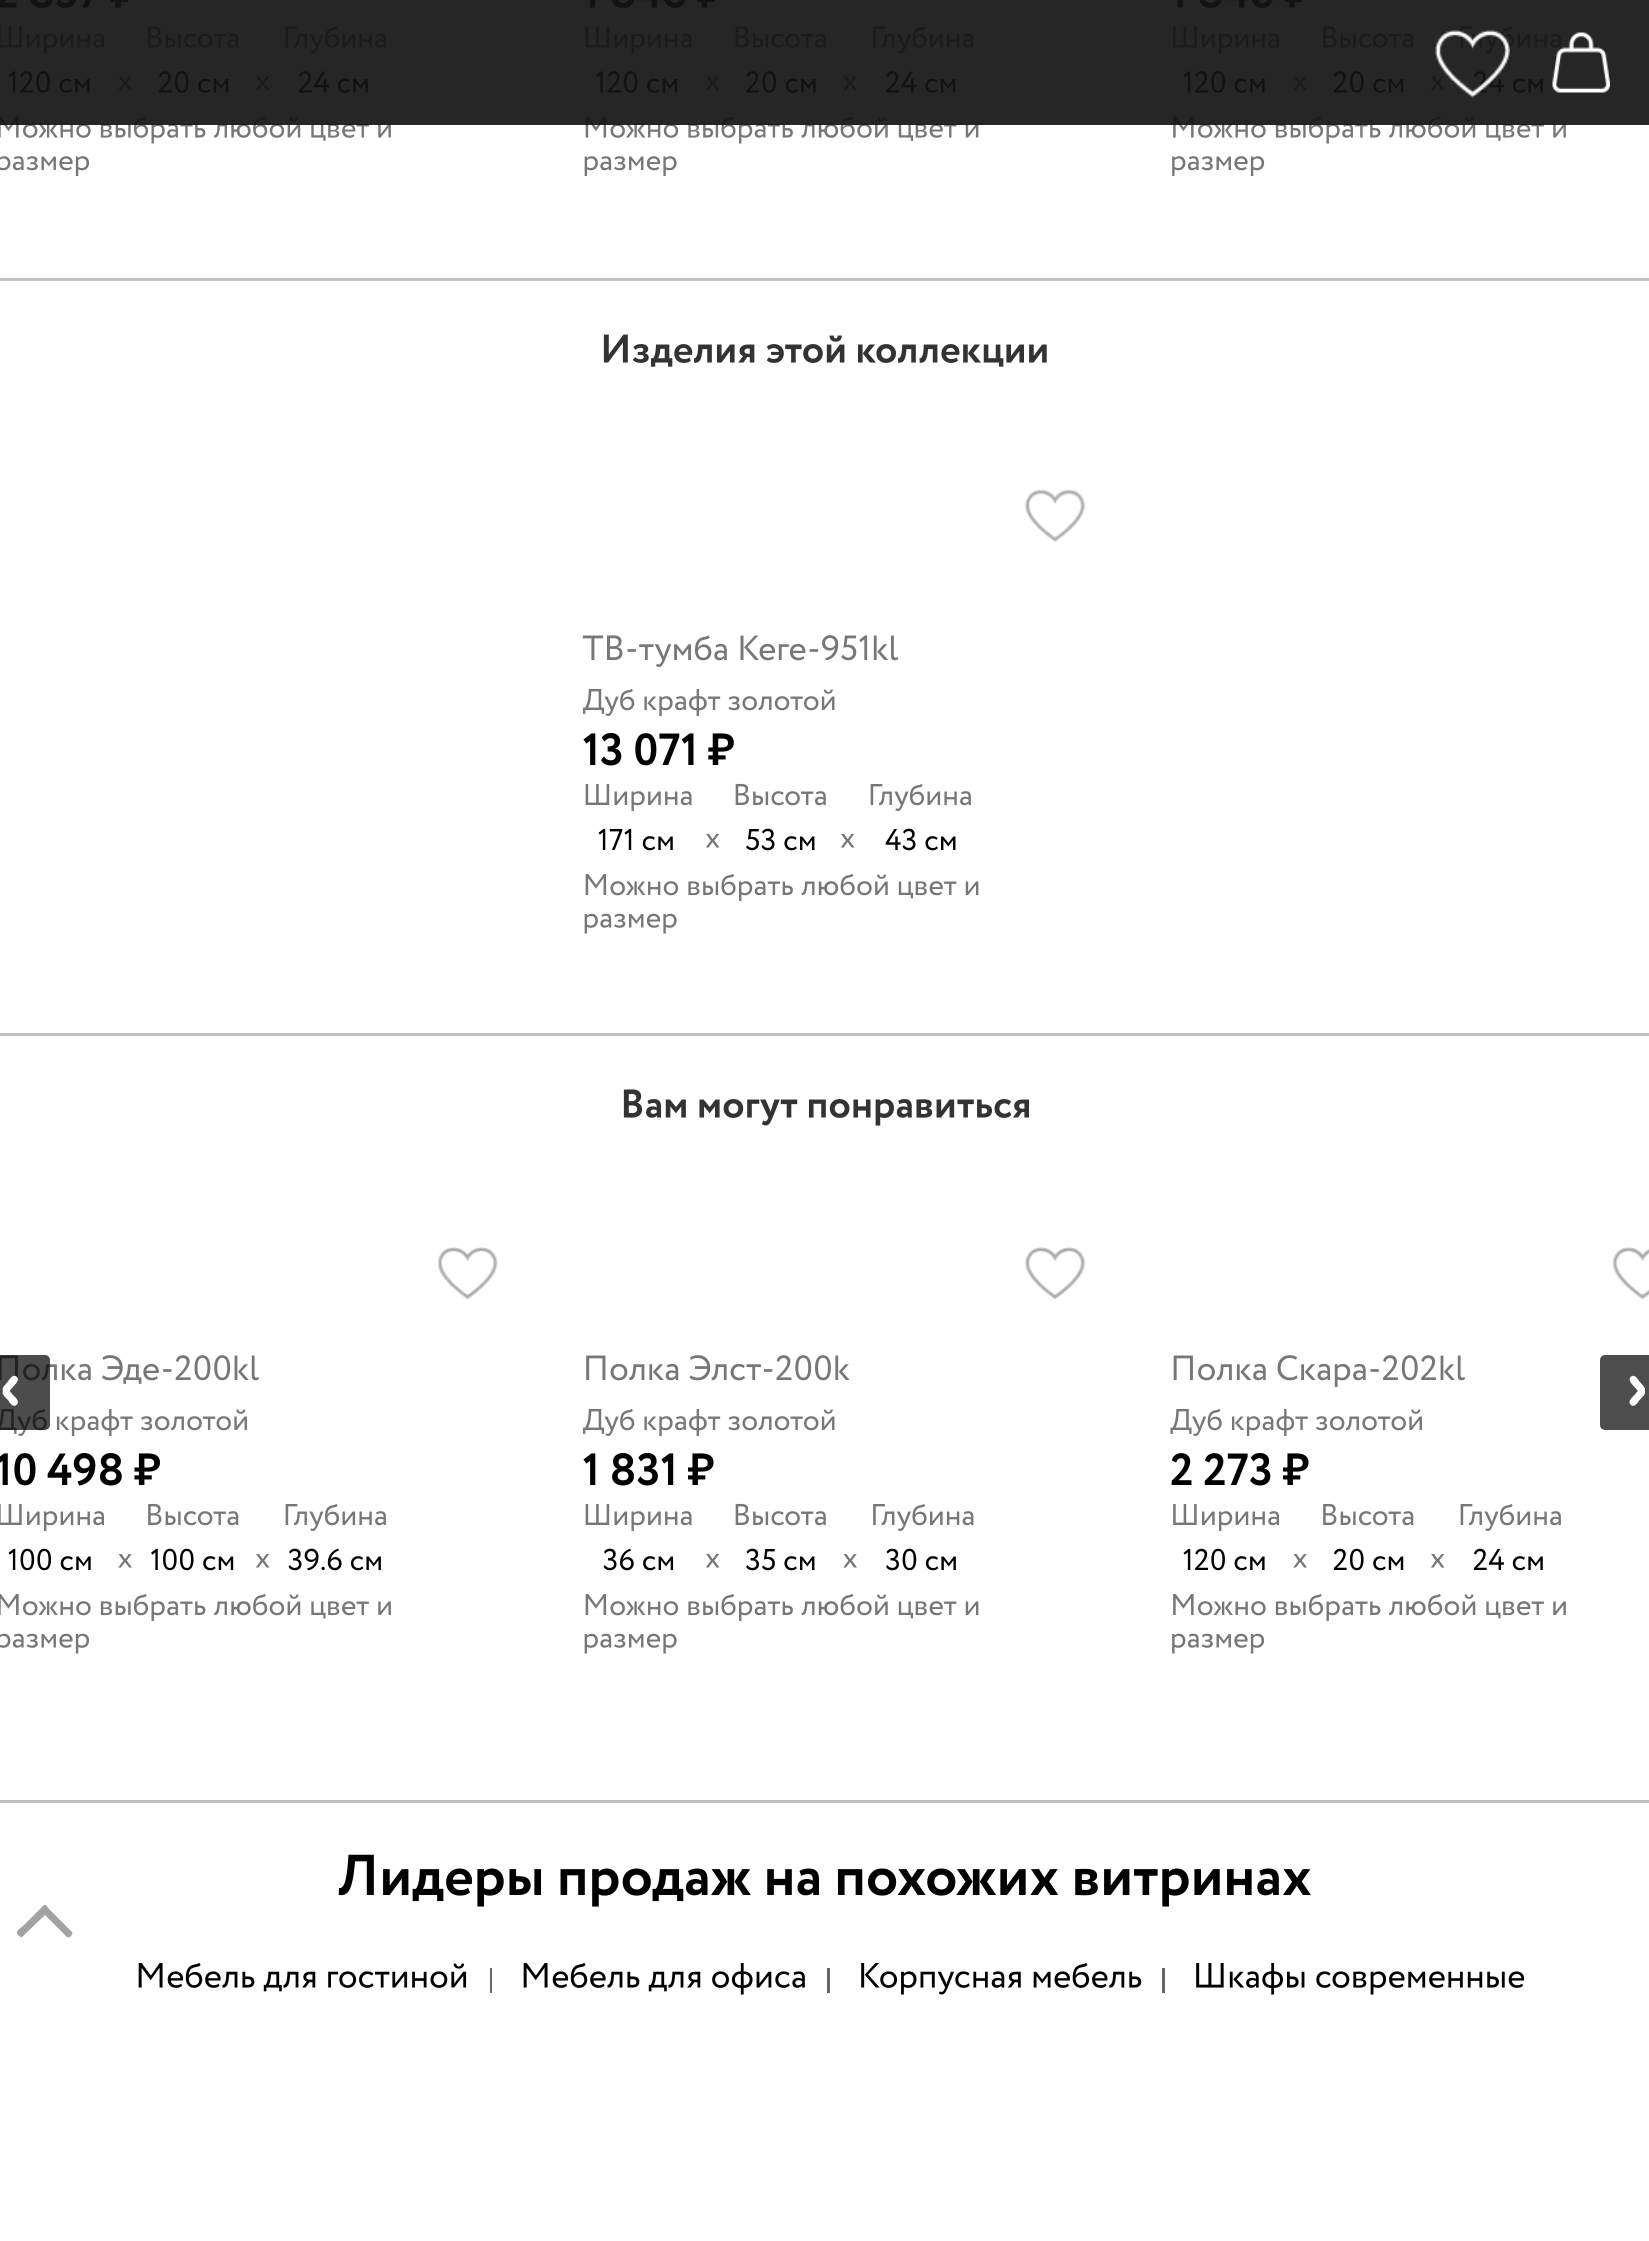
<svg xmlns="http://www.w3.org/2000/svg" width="1649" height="2241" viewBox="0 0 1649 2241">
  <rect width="100%" height="100%" fill="rgb(255,255,255)"/>
  <image x="0" y="0" width="128" height="8" href="pic1.png"/>
  <image x="0" y="26" width="104" height="28" href="pic2.png"/>
  <image x="8" y="71" width="82" height="22" href="pic3.png"/>
  <image x="118" y="76" width="14" height="14" href="pic4.png"/>
  <image x="148" y="26" width="91" height="22" href="pic5.png"/>
  <image x="158" y="71" width="71" height="22" href="pic6.png"/>
  <image x="255" y="76" width="15" height="14" href="pic7.png"/>
  <image x="285" y="26" width="101" height="28" href="pic8.png"/>
  <image x="298" y="71" width="70" height="22" href="pic9.png"/>
  <image x="0" y="116" width="391" height="28" href="pic10.png"/>
  <image x="0" y="156" width="90" height="20" href="pic11.png"/>
  <image x="590" y="0" width="125" height="8" href="pic12.png"/>
  <image x="585" y="26" width="107" height="28" href="pic13.png"/>
  <image x="596" y="71" width="82" height="22" href="pic14.png"/>
  <image x="705" y="76" width="15" height="14" href="pic7.png"/>
  <image x="735" y="26" width="91" height="22" href="pic15.png"/>
  <image x="746" y="71" width="70" height="22" href="pic16.png"/>
  <image x="843" y="76" width="14" height="14" href="pic4.png"/>
  <image x="873" y="26" width="101" height="28" href="pic17.png"/>
  <image x="886" y="71" width="70" height="22" href="pic18.png"/>
  <image x="585" y="116" width="394" height="28" href="pic19.png"/>
  <image x="584" y="156" width="93" height="20" href="pic20.png"/>
  <image x="1177" y="0" width="126" height="8" href="pic21.png"/>
  <image x="1173" y="26" width="106" height="28" href="pic22.png"/>
  <image x="1183" y="71" width="82" height="22" href="pic3.png"/>
  <image x="1293" y="76" width="14" height="14" href="pic4.png"/>
  <image x="1323" y="26" width="91" height="22" href="pic5.png"/>
  <image x="1333" y="71" width="71" height="22" href="pic6.png"/>
  <image x="1430" y="76" width="15" height="14" href="pic7.png"/>
  <image x="1460" y="26" width="101" height="28" href="pic8.png"/>
  <image x="1473" y="71" width="70" height="22" href="pic9.png"/>
  <image x="1173" y="116" width="393" height="28" href="pic23.png"/>
  <image x="1172" y="156" width="93" height="20" href="pic24.png"/>
  <rect x="0" y="278" width="1649" height="3" fill="rgb(192,192,192)"/>
  <image x="603" y="334" width="444" height="33" href="pic25.png"/>
  <image x="1024" y="489" width="62" height="54" href="pic26.png"/>
  <image x="582" y="635" width="317" height="32" href="pic27.png"/>
  <image x="582" y="688" width="253" height="28" href="pic28.png"/>
  <image x="583" y="733" width="151" height="33" href="pic29.png"/>
  <image x="585" y="784" width="107" height="27" href="pic30.png"/>
  <image x="598" y="828" width="75" height="23" href="pic31.png"/>
  <image x="705" y="834" width="15" height="14" href="pic32.png"/>
  <image x="735" y="783" width="91" height="23" href="pic33.png"/>
  <image x="746" y="828" width="69" height="23" href="pic34.png"/>
  <image x="840" y="834" width="15" height="14" href="pic32.png"/>
  <image x="870" y="783" width="101" height="28" href="pic35.png"/>
  <image x="885" y="828" width="71" height="23" href="pic36.png"/>
  <image x="585" y="873" width="394" height="28" href="pic37.png"/>
  <image x="584" y="913" width="93" height="21" href="pic38.png"/>
  <rect x="0" y="1033" width="1649" height="3" fill="rgb(192,192,192)"/>
  <image x="623" y="1089" width="406" height="37" href="pic39.png"/>
  <image x="438" y="1247" width="60" height="53" href="pic40.png"/>
  <image x="0" y="1355" width="259" height="29" href="pic41.png"/>
  <image x="0" y="1408" width="247" height="28" href="pic42.png"/>
  <image x="0" y="1453" width="160" height="33" href="pic43.png"/>
  <image x="0" y="1504" width="104" height="27" href="pic44.png"/>
  <image x="8" y="1548" width="83" height="23" href="pic45.png"/>
  <image x="118" y="1554" width="14" height="14" href="pic46.png"/>
  <image x="148" y="1503" width="91" height="23" href="pic47.png"/>
  <image x="151" y="1548" width="83" height="23" href="pic48.png"/>
  <image x="255" y="1554" width="15" height="14" href="pic32.png"/>
  <image x="285" y="1503" width="101" height="28" href="pic35.png"/>
  <image x="288" y="1548" width="93" height="23" href="pic49.png"/>
  <image x="0" y="1593" width="391" height="28" href="pic50.png"/>
  <image x="0" y="1633" width="90" height="21" href="pic51.png"/>
  <image x="1024" y="1247" width="62" height="53" href="pic52.png"/>
  <image x="586" y="1355" width="264" height="26" href="pic53.png"/>
  <image x="582" y="1408" width="253" height="28" href="pic28.png"/>
  <image x="583" y="1453" width="131" height="33" href="pic54.png"/>
  <image x="585" y="1504" width="107" height="27" href="pic30.png"/>
  <image x="603" y="1548" width="71" height="23" href="pic55.png"/>
  <image x="705" y="1554" width="15" height="14" href="pic32.png"/>
  <image x="735" y="1503" width="91" height="23" href="pic33.png"/>
  <image x="746" y="1548" width="69" height="23" href="pic56.png"/>
  <image x="843" y="1554" width="14" height="14" href="pic46.png"/>
  <image x="873" y="1503" width="101" height="28" href="pic57.png"/>
  <image x="886" y="1548" width="70" height="23" href="pic58.png"/>
  <image x="585" y="1593" width="394" height="28" href="pic37.png"/>
  <image x="584" y="1633" width="93" height="21" href="pic38.png"/>
  <image x="1612" y="1247" width="37" height="53" href="pic59.png"/>
  <image x="1173" y="1355" width="292" height="32" href="pic60.png"/>
  <image x="1170" y="1408" width="252" height="28" href="pic61.png"/>
  <image x="1171" y="1453" width="138" height="33" href="pic62.png"/>
  <image x="1173" y="1504" width="106" height="27" href="pic63.png"/>
  <image x="1183" y="1548" width="82" height="23" href="pic64.png"/>
  <image x="1293" y="1554" width="14" height="14" href="pic46.png"/>
  <image x="1323" y="1503" width="91" height="23" href="pic47.png"/>
  <image x="1333" y="1548" width="71" height="23" href="pic65.png"/>
  <image x="1430" y="1554" width="15" height="14" href="pic32.png"/>
  <image x="1460" y="1503" width="101" height="28" href="pic35.png"/>
  <image x="1473" y="1548" width="70" height="23" href="pic66.png"/>
  <image x="1173" y="1593" width="393" height="28" href="pic67.png"/>
  <image x="1172" y="1633" width="93" height="21" href="pic68.png"/>
  <rect x="-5" y="1355" width="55" height="75" rx="5" fill="rgba(0,0,0,0.7)"/>
  <path d="M4 1389.5C7.5 1386.5 11 1392.5 13 1395C15 1397 20.5 1401.5 16.5 1405C12.5 1408 9.5 1402 7.5 1399.5C5.5 1397.5 0 1393 4 1389.5Z" fill="rgb(255,255,255)"/>
  <path d="M16.5 1376.5C20.5 1380 15 1384.5 13 1387C11 1389 7.5 1395.5 4 1392C0 1389 5.5 1384.5 7.5 1382C9.5 1379.5 12.5 1373.5 16.5 1376.5Z" fill="rgb(255,255,255)"/>
  <rect x="1600" y="1355" width="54" height="75" rx="5" fill="rgb(77,77,77)"/>
  <path d="M1631 1376.5C1635 1373.5 1638 1379.5 1640 1382C1642 1384.5 1647.5 1389 1644 1392C1640 1395.5 1636.5 1389 1634.5 1387C1632.5 1384.5 1627 1380 1631 1376.5Z" fill="rgb(255,255,255)"/>
  <path d="M1644 1389.5C1647.5 1393 1642 1397.5 1640 1399.5C1638 1402 1635 1408 1631 1405C1627 1401.5 1632.5 1397 1634.5 1395C1636.5 1392.5 1640 1386.5 1644 1389.5Z" fill="rgb(255,255,255)"/>
  <rect x="0" y="1800" width="1649" height="3" fill="rgb(192,192,192)"/>
  <image x="338" y="1854" width="973" height="53" href="pic69.png"/>
  <image x="138" y="1962" width="329" height="30" href="pic70.png"/>
  <rect x="490" y="1968" width="2" height="25" fill="rgb(102,102,102)"/>
  <image x="523" y="1962" width="282" height="33" href="pic71.png"/>
  <rect x="827" y="1968" width="3" height="25" fill="rgb(102,102,102)"/>
  <image x="861" y="1962" width="281" height="33" href="pic72.png"/>
  <rect x="1162" y="1968" width="3" height="25" fill="rgb(102,102,102)"/>
  <image x="1196" y="1963" width="329" height="32" href="pic73.png"/>
  <rect x="0" y="0" width="1649" height="125" fill="rgba(20,20,20,0.92)"/>
  <image x="1435" y="30" width="75" height="68" href="pic74.png"/>
  <image x="1552" y="32" width="58" height="61" href="pic75.png"/>
  <path d="M72 1932C73 1933 72 1935 71 1936C67 1939 67 1937 63 1933L45 1915L22 1937C21 1938 20 1936 19 1936C15 1932 17 1931 22 1927L39 1910C46 1903 44 1903 50 1910Z" fill="rgb(162,162,162)"/>
</svg>
